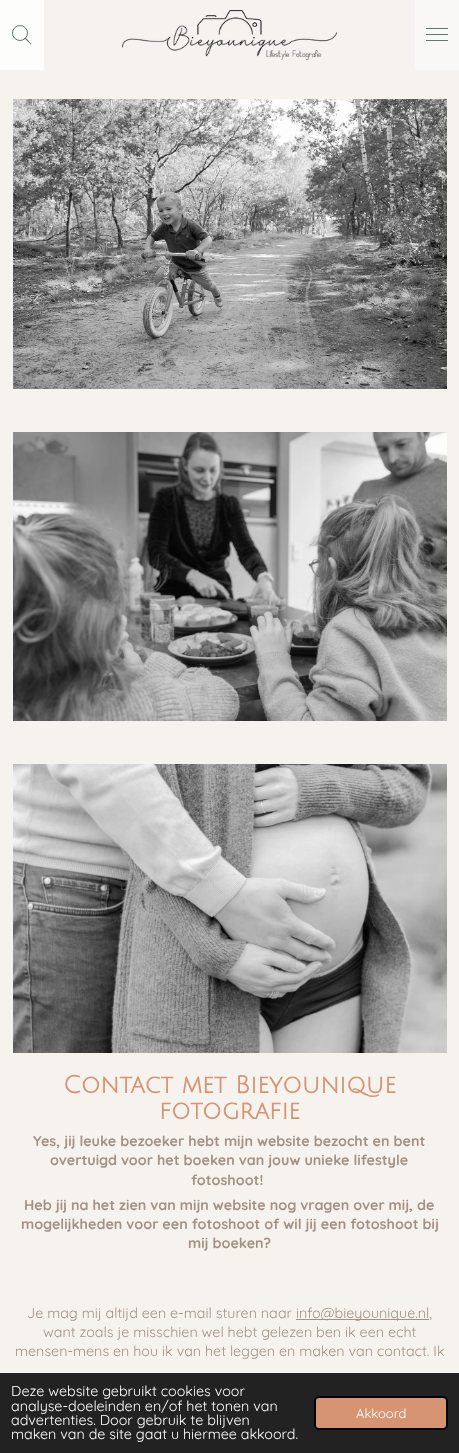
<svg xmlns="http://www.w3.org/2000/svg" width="459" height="1453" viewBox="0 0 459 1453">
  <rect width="100%" height="100%" fill="rgb(246,243,239)"/>
  <rect x="0" y="0" width="44" height="70" fill="rgb(253,253,252)"/>
  <circle cx="20" cy="33" r="7.5" fill="none" stroke="rgb(93,122,120)"/>
  <path d="M25.5 37.5L31.5 44L31 44.5L24.5 38.5Z" fill="rgb(93,122,120)"/>
  <image x="122" y="10" width="215" height="50" href="pic1.png"/>
  <rect x="415" y="0" width="44" height="70" fill="rgb(250,248,246)"/>
  <rect x="426" y="34" width="22" height="1" fill="rgb(93,122,120)"/>
  <rect x="426" y="28" width="22" height="1" fill="rgb(93,122,120)"/>
  <rect x="426" y="40" width="22" height="1" fill="rgb(93,122,120)"/>
  <image x="13" y="99" width="434" height="290" href="pic2.png"/>
  <image x="13" y="432" width="434" height="289" href="pic3.png"/>
  <image x="13" y="764" width="434" height="289" href="pic4.png"/>
  <g font-family="Julius Sans One" font-size="24.1" font-weight="bold" fill="rgb(214,148,115)">
    <text x="63" y="1093">Contact met Bieyounique</text>
    <text x="159" y="1119">fotografie</text>
  </g>
  <g font-family="Quicksand" font-size="14.3" font-weight="bold" fill="rgb(163,145,133)">
    <text x="33" y="1146">Yes, jij leuke bezoeker hebt mijn website bezocht en bent</text>
    <text x="50" y="1165">overtuigd voor het boeken van jouw unieke lifestyle</text>
    <text x="191" y="1185">fotoshoot!</text>
    <text x="24" y="1210">Heb jij na het zien van mijn website nog vragen over mij, de</text>
    <text x="21" y="1229">mogelijkheden voor een fotoshoot of wil jij een fotoshoot bij</text>
    <text x="188" y="1248">mij boeken?</text>
  </g>
  <text x="27" y="1318" font-family="Quicksand" font-size="14.3" fill="rgb(163,145,133)">Je mag mij altijd een e-mail sturen naar</text>
  <rect x="296" y="1319" width="133" height="1" fill="rgb(163,145,133)"/>
  <g font-family="Quicksand" font-size="14.3" fill="rgb(163,145,133)">
    <text x="296" y="1318">info@bieyounique.nl,</text>
    <text x="43" y="1337">want zoals je misschien wel hebt gelezen ben ik een echt</text>
    <text x="15" y="1356">mensen-mens en hou ik van het leggen en maken van contact. Ik</text>
  </g>
  <rect x="0" y="1373" width="459" height="80" fill="rgb(34,34,34)"/>
  <g font-family="Quicksand" font-size="14.3" fill="rgb(255,255,255)">
    <text>
      <tspan x="11" y="1396">Deze website gebruikt cookies voor</tspan>
      <tspan x="11" y="1411">analyse-doeleinden en/of het tonen van</tspan>
      <tspan x="11" y="1425">advertenties. Door gebruik te blijven</tspan>
      <tspan x="11" y="1439">maken van de site gaat u hiermee akkoord.</tspan>
    </text>
  </g>
  <rect x="315" y="1397" width="132" height="32" rx="4" fill="rgb(214,148,115)" stroke="rgb(0,0,0)" stroke-width="2"/>
  <text x="356" y="1418" font-family="Quicksand" font-size="13" fill="rgb(255,255,255)">Akkoord</text>
</svg>
